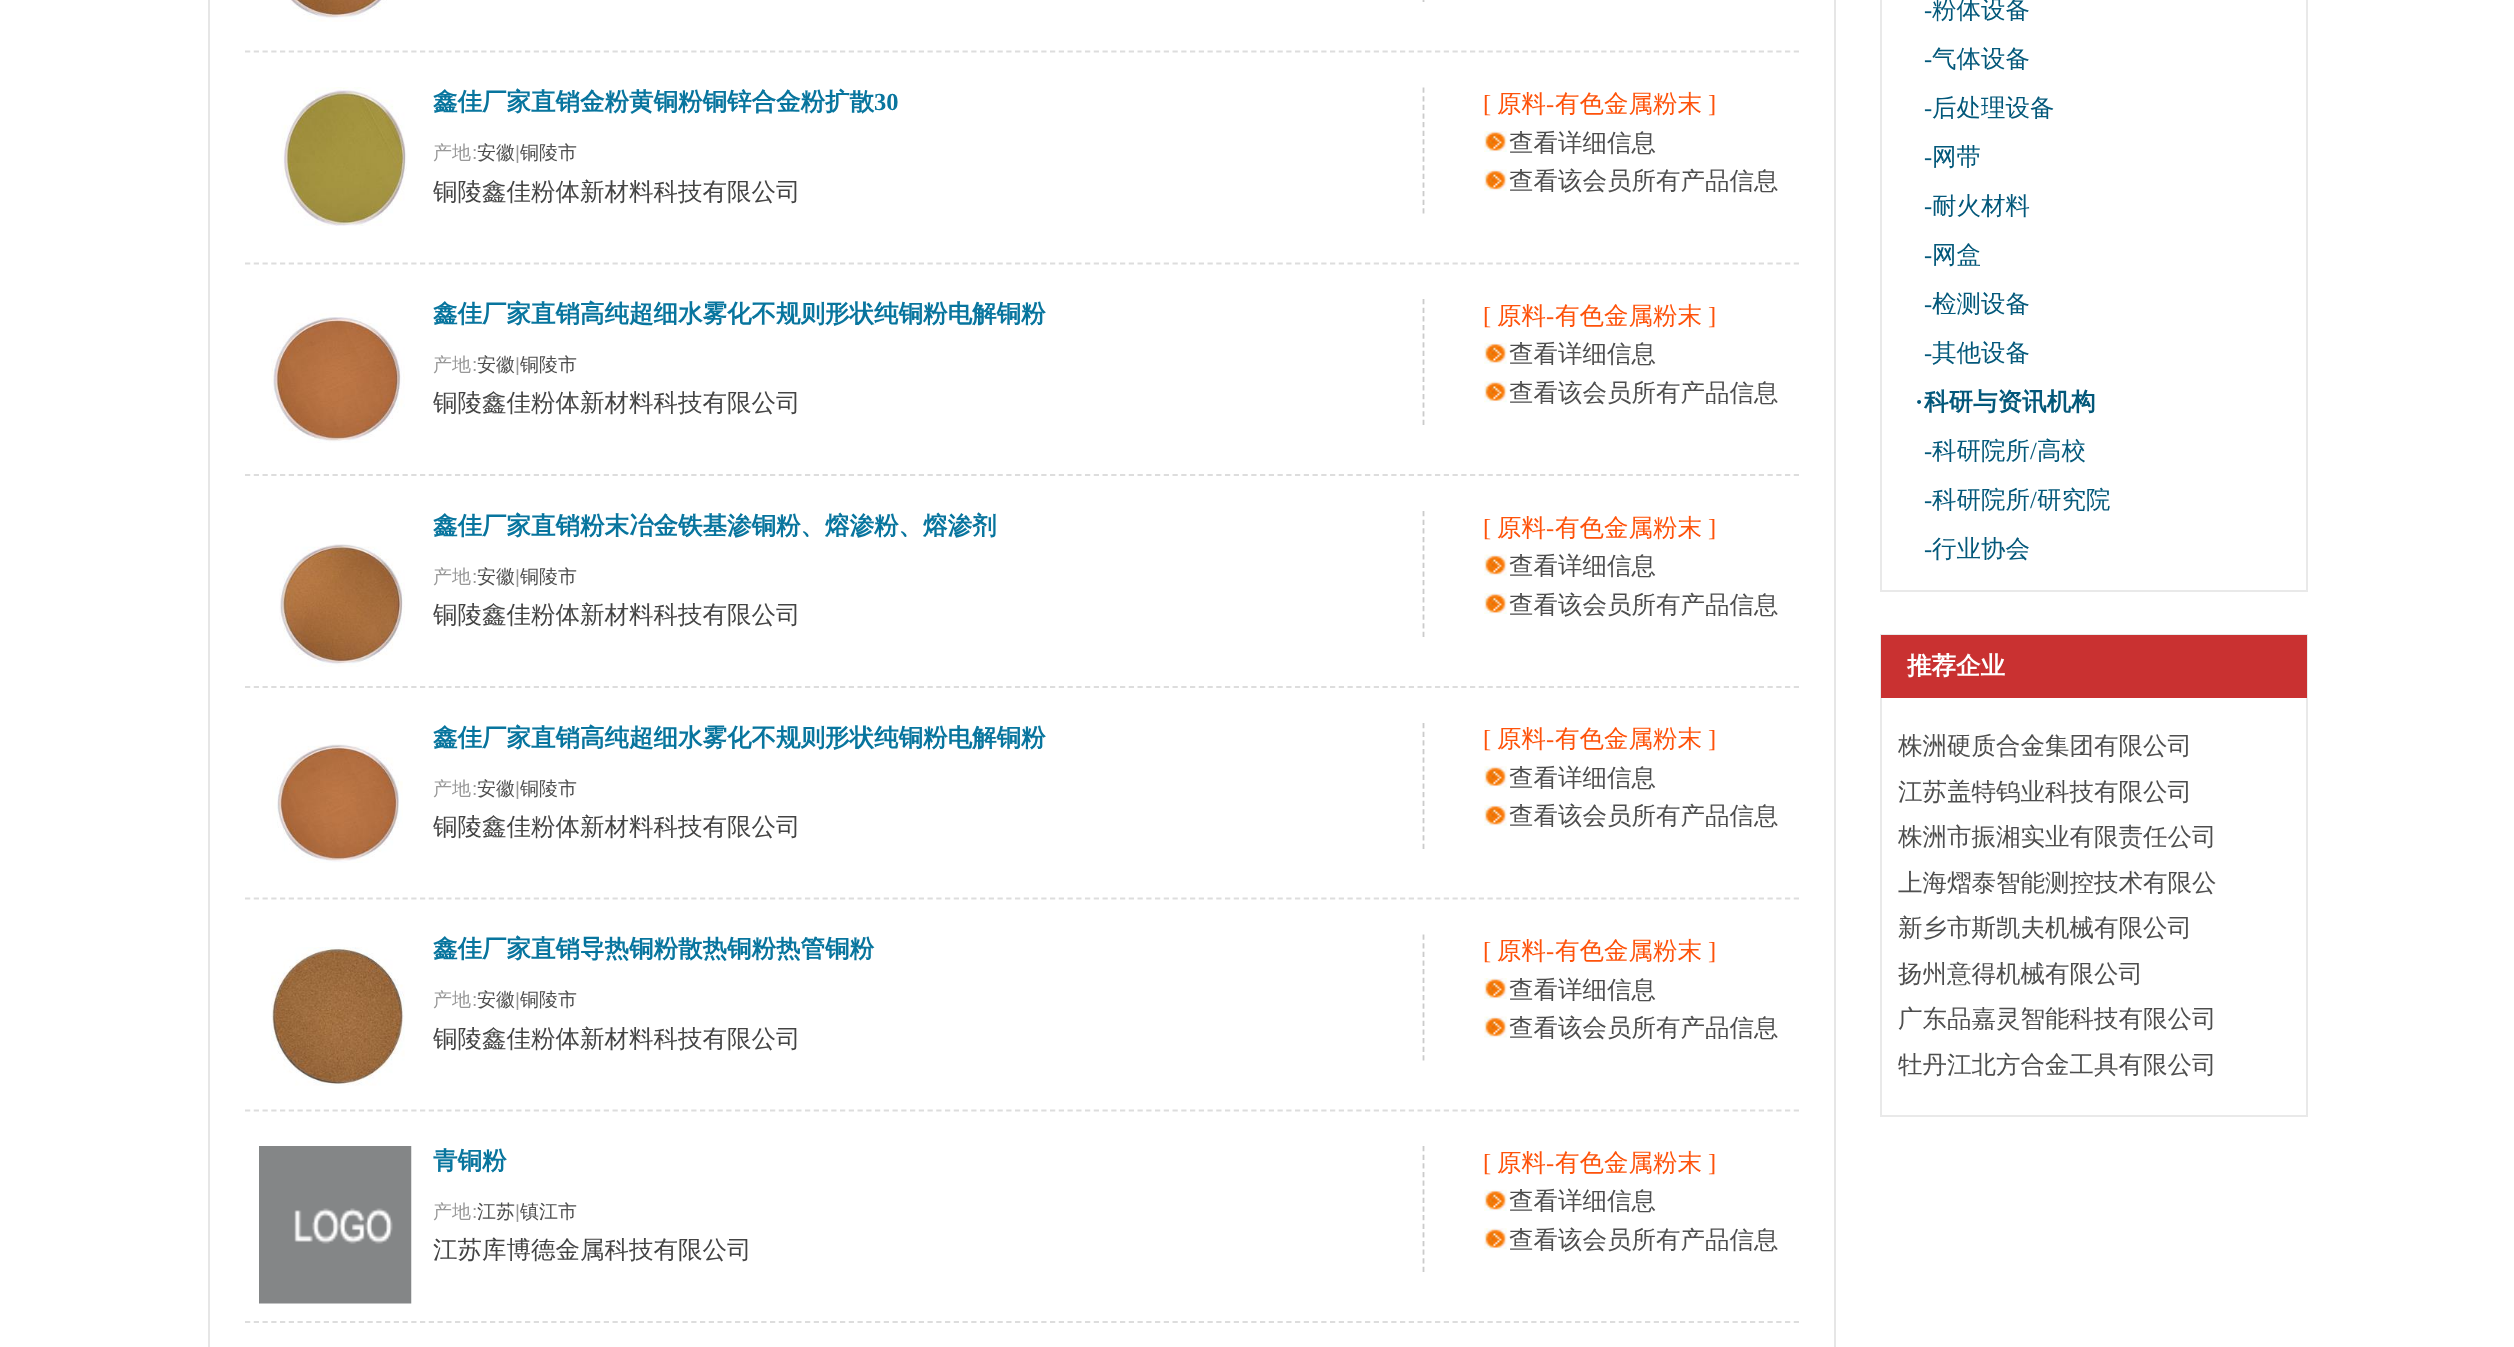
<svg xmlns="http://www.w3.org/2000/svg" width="2514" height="1347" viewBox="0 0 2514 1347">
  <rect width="100%" height="100%" fill="rgb(255,255,255)"/>
  <rect x="1834" y="0" width="2" height="1347" fill="rgb(230,230,230)"/>
  <rect x="208" y="0" width="2" height="1347" fill="rgb(230,230,230)"/>
  <path d="M245 51.5H1799" fill="none" stroke="rgb(221,221,221)" stroke-width="1.8" stroke-dasharray="5.25 3.5"/>
  <image x="290" y="0" width="97" height="22" href="pic1.png"/>
  <path d="M1423.5-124V2" fill="none" stroke="rgb(203,203,203)" stroke-width="1.8" stroke-dasharray="5.25 3.38"/>
  <path d="M245 263.5H1799" fill="none" stroke="rgb(221,221,221)" stroke-width="1.8" stroke-dasharray="5.25 3.5"/>
  <image x="281" y="87" width="126" height="139" href="pic2.png"/>
  <path d="M1423.5 87.5V213.5" fill="none" stroke="rgb(203,203,203)" stroke-width="1.8" stroke-dasharray="5.25 3.38"/>
  <text x="433" y="110" font-family="WenQuanYi Zen Hei" font-size="24.5" font-weight="bold" fill="rgb(8,117,158)">鑫佳厂家直销金粉黄铜粉铜锌合金粉扩散</text>
  <text x="874" y="110" font-family="Liberation Serif" font-size="24.5" font-weight="bold" fill="rgb(8,117,158)">30</text>
  <text x="433" y="159" font-family="WenQuanYi Zen Hei" font-size="19" font-weight="500" fill="rgb(153,153,153)">产地</text>
  <text x="472" y="159" font-family="Liberation Sans" font-size="19" fill="rgb(153,153,153)">:</text>
  <text x="477" y="159" font-family="WenQuanYi Zen Hei" font-size="19" font-weight="500" fill="rgb(78,78,78)">安徽</text>
  <text x="515" y="159" font-family="Liberation Sans" font-size="19" fill="rgb(153,153,153)">|</text>
  <text x="520" y="159" font-family="WenQuanYi Zen Hei" font-size="19" font-weight="500" fill="rgb(78,78,78)">铜陵市</text>
  <text x="433" y="200" font-family="WenQuanYi Zen Hei" font-size="24.5" font-weight="500" fill="rgb(68,68,68)">铜陵鑫佳粉体新材料科技有限公司</text>
  <text x="1483" y="112" font-family="Liberation Serif" font-size="24.5" fill="rgb(254,82,10)">[</text>
  <text x="1497" y="112" font-family="WenQuanYi Zen Hei" font-size="24.5" font-weight="500" fill="rgb(254,82,10)">原料</text>
  <text x="1546" y="112" font-family="Liberation Serif" font-size="24.5" fill="rgb(254,82,10)">-</text>
  <text x="1555" y="112" font-family="WenQuanYi Zen Hei" font-size="24.5" font-weight="500" fill="rgb(254,82,10)">有色金属粉末</text>
  <text x="1708" y="112" font-family="Liberation Serif" font-size="24.5" fill="rgb(254,82,10)">]</text>
  <image x="1484" y="131" width="23" height="21" href="pic3.png"/>
  <text x="1509" y="151" font-family="WenQuanYi Zen Hei" font-size="24.5" font-weight="500" fill="rgb(78,78,78)">查看详细信息</text>
  <image x="1484" y="169" width="23" height="22" href="pic4.png"/>
  <text x="1509" y="189" font-family="WenQuanYi Zen Hei" font-size="24.5" font-weight="500" fill="rgb(78,78,78)">查看该会员所有产品信息</text>
  <path d="M245 475H1799" fill="none" stroke="rgb(221,221,221)" stroke-width="1.8" stroke-dasharray="5.25 3.5"/>
  <image x="271" y="313" width="134" height="130" href="pic5.png"/>
  <path d="M1423.5 299V425" fill="none" stroke="rgb(203,203,203)" stroke-width="1.8" stroke-dasharray="5.25 3.38"/>
  <text x="433" y="322" font-family="WenQuanYi Zen Hei" font-size="24.5" font-weight="bold" fill="rgb(8,117,158)">鑫佳厂家直销高纯超细水雾化不规则形状纯铜粉电解铜粉</text>
  <text x="433" y="371" font-family="WenQuanYi Zen Hei" font-size="19" font-weight="500" fill="rgb(153,153,153)">产地</text>
  <text x="472" y="371" font-family="Liberation Sans" font-size="19" fill="rgb(153,153,153)">:</text>
  <text x="477" y="371" font-family="WenQuanYi Zen Hei" font-size="19" font-weight="500" fill="rgb(78,78,78)">安徽</text>
  <text x="515" y="371" font-family="Liberation Sans" font-size="19" fill="rgb(153,153,153)">|</text>
  <text x="520" y="371" font-family="WenQuanYi Zen Hei" font-size="19" font-weight="500" fill="rgb(78,78,78)">铜陵市</text>
  <text x="433" y="411" font-family="WenQuanYi Zen Hei" font-size="24.5" font-weight="500" fill="rgb(68,68,68)">铜陵鑫佳粉体新材料科技有限公司</text>
  <text x="1483" y="324" font-family="Liberation Serif" font-size="24.5" fill="rgb(254,82,10)">[</text>
  <text x="1497" y="324" font-family="WenQuanYi Zen Hei" font-size="24.5" font-weight="500" fill="rgb(254,82,10)">原料</text>
  <text x="1546" y="324" font-family="Liberation Serif" font-size="24.5" fill="rgb(254,82,10)">-</text>
  <text x="1555" y="324" font-family="WenQuanYi Zen Hei" font-size="24.5" font-weight="500" fill="rgb(254,82,10)">有色金属粉末</text>
  <text x="1708" y="324" font-family="Liberation Serif" font-size="24.5" fill="rgb(254,82,10)">]</text>
  <image x="1484" y="342" width="23" height="22" href="pic6.png"/>
  <text x="1509" y="362" font-family="WenQuanYi Zen Hei" font-size="24.5" font-weight="500" fill="rgb(78,78,78)">查看详细信息</text>
  <image x="1484" y="381" width="23" height="22" href="pic7.png"/>
  <text x="1509" y="401" font-family="WenQuanYi Zen Hei" font-size="24.5" font-weight="500" fill="rgb(78,78,78)">查看该会员所有产品信息</text>
  <path d="M245 687H1799" fill="none" stroke="rgb(221,221,221)" stroke-width="1.8" stroke-dasharray="5.25 3.5"/>
  <image x="279" y="544" width="126" height="123" href="pic8.png"/>
  <path d="M1423.5 511V637" fill="none" stroke="rgb(203,203,203)" stroke-width="1.8" stroke-dasharray="5.25 3.38"/>
  <text x="433" y="534" font-family="WenQuanYi Zen Hei" font-size="24.5" font-weight="bold" fill="rgb(8,117,158)">鑫佳厂家直销粉末冶金铁基渗铜粉、熔渗粉、熔渗剂</text>
  <text x="433" y="583" font-family="WenQuanYi Zen Hei" font-size="19" font-weight="500" fill="rgb(153,153,153)">产地</text>
  <text x="472" y="583" font-family="Liberation Sans" font-size="19" fill="rgb(153,153,153)">:</text>
  <text x="477" y="583" font-family="WenQuanYi Zen Hei" font-size="19" font-weight="500" fill="rgb(78,78,78)">安徽</text>
  <text x="515" y="583" font-family="Liberation Sans" font-size="19" fill="rgb(153,153,153)">|</text>
  <text x="520" y="583" font-family="WenQuanYi Zen Hei" font-size="19" font-weight="500" fill="rgb(78,78,78)">铜陵市</text>
  <text x="433" y="623" font-family="WenQuanYi Zen Hei" font-size="24.5" font-weight="500" fill="rgb(68,68,68)">铜陵鑫佳粉体新材料科技有限公司</text>
  <text x="1483" y="536" font-family="Liberation Serif" font-size="24.5" fill="rgb(254,82,10)">[</text>
  <text x="1497" y="536" font-family="WenQuanYi Zen Hei" font-size="24.5" font-weight="500" fill="rgb(254,82,10)">原料</text>
  <text x="1546" y="536" font-family="Liberation Serif" font-size="24.5" fill="rgb(254,82,10)">-</text>
  <text x="1555" y="536" font-family="WenQuanYi Zen Hei" font-size="24.5" font-weight="500" fill="rgb(254,82,10)">有色金属粉末</text>
  <text x="1708" y="536" font-family="Liberation Serif" font-size="24.5" fill="rgb(254,82,10)">]</text>
  <image x="1484" y="554" width="23" height="22" href="pic4.png"/>
  <text x="1509" y="574" font-family="WenQuanYi Zen Hei" font-size="24.5" font-weight="500" fill="rgb(78,78,78)">查看详细信息</text>
  <image x="1484" y="593" width="23" height="21" href="pic3.png"/>
  <text x="1509" y="613" font-family="WenQuanYi Zen Hei" font-size="24.5" font-weight="500" fill="rgb(78,78,78)">查看该会员所有产品信息</text>
  <path d="M245 898.5H1799" fill="none" stroke="rgb(221,221,221)" stroke-width="1.8" stroke-dasharray="5.25 3.5"/>
  <image x="272" y="744" width="131" height="119" href="pic9.png"/>
  <path d="M1423.5 723V849" fill="none" stroke="rgb(203,203,203)" stroke-width="1.8" stroke-dasharray="5.25 3.38"/>
  <text x="433" y="746" font-family="WenQuanYi Zen Hei" font-size="24.5" font-weight="bold" fill="rgb(8,117,158)">鑫佳厂家直销高纯超细水雾化不规则形状纯铜粉电解铜粉</text>
  <text x="433" y="795" font-family="WenQuanYi Zen Hei" font-size="19" font-weight="500" fill="rgb(153,153,153)">产地</text>
  <text x="472" y="795" font-family="Liberation Sans" font-size="19" fill="rgb(153,153,153)">:</text>
  <text x="477" y="795" font-family="WenQuanYi Zen Hei" font-size="19" font-weight="500" fill="rgb(78,78,78)">安徽</text>
  <text x="515" y="795" font-family="Liberation Sans" font-size="19" fill="rgb(153,153,153)">|</text>
  <text x="520" y="795" font-family="WenQuanYi Zen Hei" font-size="19" font-weight="500" fill="rgb(78,78,78)">铜陵市</text>
  <text x="433" y="835" font-family="WenQuanYi Zen Hei" font-size="24.5" font-weight="500" fill="rgb(68,68,68)">铜陵鑫佳粉体新材料科技有限公司</text>
  <text x="1483" y="747" font-family="Liberation Serif" font-size="24.5" fill="rgb(254,82,10)">[</text>
  <text x="1497" y="747" font-family="WenQuanYi Zen Hei" font-size="24.5" font-weight="500" fill="rgb(254,82,10)">原料</text>
  <text x="1546" y="747" font-family="Liberation Serif" font-size="24.5" fill="rgb(254,82,10)">-</text>
  <text x="1555" y="747" font-family="WenQuanYi Zen Hei" font-size="24.5" font-weight="500" fill="rgb(254,82,10)">有色金属粉末</text>
  <text x="1708" y="747" font-family="Liberation Serif" font-size="24.5" fill="rgb(254,82,10)">]</text>
  <image x="1484" y="766" width="23" height="22" href="pic7.png"/>
  <text x="1509" y="786" font-family="WenQuanYi Zen Hei" font-size="24.5" font-weight="500" fill="rgb(78,78,78)">查看详细信息</text>
  <image x="1484" y="804" width="23" height="22" href="pic6.png"/>
  <text x="1509" y="824" font-family="WenQuanYi Zen Hei" font-size="24.5" font-weight="500" fill="rgb(78,78,78)">查看该会员所有产品信息</text>
  <path d="M245 1110.5H1799" fill="none" stroke="rgb(221,221,221)" stroke-width="1.8" stroke-dasharray="5.25 3.5"/>
  <image x="271" y="947" width="134" height="139" href="pic10.png"/>
  <path d="M1423.5 934.5V1060.5" fill="none" stroke="rgb(203,203,203)" stroke-width="1.8" stroke-dasharray="5.25 3.38"/>
  <text x="433" y="957" font-family="WenQuanYi Zen Hei" font-size="24.5" font-weight="bold" fill="rgb(8,117,158)">鑫佳厂家直销导热铜粉散热铜粉热管铜粉</text>
  <text x="433" y="1006" font-family="WenQuanYi Zen Hei" font-size="19" font-weight="500" fill="rgb(153,153,153)">产地</text>
  <text x="472" y="1006" font-family="Liberation Sans" font-size="19" fill="rgb(153,153,153)">:</text>
  <text x="477" y="1006" font-family="WenQuanYi Zen Hei" font-size="19" font-weight="500" fill="rgb(78,78,78)">安徽</text>
  <text x="515" y="1006" font-family="Liberation Sans" font-size="19" fill="rgb(153,153,153)">|</text>
  <text x="520" y="1006" font-family="WenQuanYi Zen Hei" font-size="19" font-weight="500" fill="rgb(78,78,78)">铜陵市</text>
  <text x="433" y="1047" font-family="WenQuanYi Zen Hei" font-size="24.5" font-weight="500" fill="rgb(68,68,68)">铜陵鑫佳粉体新材料科技有限公司</text>
  <text x="1483" y="959" font-family="Liberation Serif" font-size="24.5" fill="rgb(254,82,10)">[</text>
  <text x="1497" y="959" font-family="WenQuanYi Zen Hei" font-size="24.5" font-weight="500" fill="rgb(254,82,10)">原料</text>
  <text x="1546" y="959" font-family="Liberation Serif" font-size="24.5" fill="rgb(254,82,10)">-</text>
  <text x="1555" y="959" font-family="WenQuanYi Zen Hei" font-size="24.5" font-weight="500" fill="rgb(254,82,10)">有色金属粉末</text>
  <text x="1708" y="959" font-family="Liberation Serif" font-size="24.5" fill="rgb(254,82,10)">]</text>
  <image x="1484" y="978" width="23" height="21" href="pic3.png"/>
  <text x="1509" y="998" font-family="WenQuanYi Zen Hei" font-size="24.5" font-weight="500" fill="rgb(78,78,78)">查看详细信息</text>
  <image x="1484" y="1016" width="23" height="22" href="pic4.png"/>
  <text x="1509" y="1036" font-family="WenQuanYi Zen Hei" font-size="24.5" font-weight="500" fill="rgb(78,78,78)">查看该会员所有产品信息</text>
  <path d="M245 1322H1799" fill="none" stroke="rgb(221,221,221)" stroke-width="1.8" stroke-dasharray="5.25 3.5"/>
  <image x="259" y="1146" width="153" height="158" href="pic11.png"/>
  <path d="M1423.5 1146V1272" fill="none" stroke="rgb(203,203,203)" stroke-width="1.8" stroke-dasharray="5.25 3.38"/>
  <text x="433" y="1169" font-family="WenQuanYi Zen Hei" font-size="24.5" font-weight="bold" fill="rgb(8,117,158)">青铜粉</text>
  <text x="433" y="1218" font-family="WenQuanYi Zen Hei" font-size="19" font-weight="500" fill="rgb(153,153,153)">产地</text>
  <text x="472" y="1218" font-family="Liberation Sans" font-size="19" fill="rgb(153,153,153)">:</text>
  <text x="477" y="1218" font-family="WenQuanYi Zen Hei" font-size="19" font-weight="500" fill="rgb(78,78,78)">江苏</text>
  <text x="515" y="1218" font-family="Liberation Sans" font-size="19" fill="rgb(153,153,153)">|</text>
  <text x="520" y="1218" font-family="WenQuanYi Zen Hei" font-size="19" font-weight="500" fill="rgb(78,78,78)">镇江市</text>
  <text x="433" y="1258" font-family="WenQuanYi Zen Hei" font-size="24.5" font-weight="500" fill="rgb(68,68,68)">江苏库博德金属科技有限公司</text>
  <text x="1483" y="1171" font-family="Liberation Serif" font-size="24.5" fill="rgb(254,82,10)">[</text>
  <text x="1497" y="1171" font-family="WenQuanYi Zen Hei" font-size="24.5" font-weight="500" fill="rgb(254,82,10)">原料</text>
  <text x="1546" y="1171" font-family="Liberation Serif" font-size="24.5" fill="rgb(254,82,10)">-</text>
  <text x="1555" y="1171" font-family="WenQuanYi Zen Hei" font-size="24.5" font-weight="500" fill="rgb(254,82,10)">有色金属粉末</text>
  <text x="1708" y="1171" font-family="Liberation Serif" font-size="24.5" fill="rgb(254,82,10)">]</text>
  <image x="1484" y="1189" width="23" height="22" href="pic6.png"/>
  <text x="1509" y="1209" font-family="WenQuanYi Zen Hei" font-size="24.5" font-weight="500" fill="rgb(78,78,78)">查看详细信息</text>
  <image x="1484" y="1228" width="23" height="22" href="pic7.png"/>
  <text x="1509" y="1248" font-family="WenQuanYi Zen Hei" font-size="24.5" font-weight="500" fill="rgb(78,78,78)">查看该会员所有产品信息</text>
  <rect x="1881" y="-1" width="426" height="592" fill="none" stroke="rgb(233,233,233)" stroke-width="2"/>
  <text x="1924" y="18" font-family="Liberation Serif" font-size="24.5" fill="rgb(3,88,122)">-</text>
  <text x="1932" y="18" font-family="WenQuanYi Zen Hei" font-size="24.5" font-weight="500" fill="rgb(3,88,122)">粉体设备</text>
  <text x="1924" y="67" font-family="Liberation Serif" font-size="24.5" fill="rgb(3,88,122)">-</text>
  <text x="1932" y="67" font-family="WenQuanYi Zen Hei" font-size="24.5" font-weight="500" fill="rgb(3,88,122)">气体设备</text>
  <text x="1924" y="116" font-family="Liberation Serif" font-size="24.5" fill="rgb(3,88,122)">-</text>
  <text x="1932" y="116" font-family="WenQuanYi Zen Hei" font-size="24.5" font-weight="500" fill="rgb(3,88,122)">后处理设备</text>
  <text x="1924" y="165" font-family="Liberation Serif" font-size="24.5" fill="rgb(3,88,122)">-</text>
  <text x="1932" y="165" font-family="WenQuanYi Zen Hei" font-size="24.5" font-weight="500" fill="rgb(3,88,122)">网带</text>
  <text x="1924" y="214" font-family="Liberation Serif" font-size="24.5" fill="rgb(3,88,122)">-</text>
  <text x="1932" y="214" font-family="WenQuanYi Zen Hei" font-size="24.5" font-weight="500" fill="rgb(3,88,122)">耐火材料</text>
  <text x="1924" y="263" font-family="Liberation Serif" font-size="24.5" fill="rgb(3,88,122)">-</text>
  <text x="1932" y="263" font-family="WenQuanYi Zen Hei" font-size="24.5" font-weight="500" fill="rgb(3,88,122)">网盒</text>
  <text x="1924" y="312" font-family="Liberation Serif" font-size="24.5" fill="rgb(3,88,122)">-</text>
  <text x="1932" y="312" font-family="WenQuanYi Zen Hei" font-size="24.5" font-weight="500" fill="rgb(3,88,122)">检测设备</text>
  <text x="1924" y="361" font-family="Liberation Serif" font-size="24.5" fill="rgb(3,88,122)">-</text>
  <text x="1932" y="361" font-family="WenQuanYi Zen Hei" font-size="24.5" font-weight="500" fill="rgb(3,88,122)">其他设备</text>
  <text x="1915" y="410" font-family="Liberation Serif" font-size="24.5" font-weight="bold" fill="rgb(3,88,122)">·</text>
  <text x="1924" y="410" font-family="WenQuanYi Zen Hei" font-size="24.5" font-weight="bold" fill="rgb(3,88,122)">科研与资讯机构</text>
  <text x="1924" y="459" font-family="Liberation Serif" font-size="24.5" fill="rgb(3,88,122)">-</text>
  <text x="1932" y="459" font-family="WenQuanYi Zen Hei" font-size="24.5" font-weight="500" fill="rgb(3,88,122)">科研院所</text>
  <text x="2030" y="459" font-family="Liberation Serif" font-size="24.5" fill="rgb(3,88,122)">/</text>
  <text x="2037" y="459" font-family="WenQuanYi Zen Hei" font-size="24.5" font-weight="500" fill="rgb(3,88,122)">高校</text>
  <text x="1924" y="508" font-family="Liberation Serif" font-size="24.5" fill="rgb(3,88,122)">-</text>
  <text x="1932" y="508" font-family="WenQuanYi Zen Hei" font-size="24.5" font-weight="500" fill="rgb(3,88,122)">科研院所</text>
  <text x="2030" y="508" font-family="Liberation Serif" font-size="24.5" fill="rgb(3,88,122)">/</text>
  <text x="2037" y="508" font-family="WenQuanYi Zen Hei" font-size="24.5" font-weight="500" fill="rgb(3,88,122)">研究院</text>
  <text x="1924" y="557" font-family="Liberation Serif" font-size="24.5" fill="rgb(3,88,122)">-</text>
  <text x="1932" y="557" font-family="WenQuanYi Zen Hei" font-size="24.5" font-weight="500" fill="rgb(3,88,122)">行业协会</text>
  <rect x="1881" y="635" width="426" height="481" fill="none" stroke="rgb(233,233,233)" stroke-width="2"/>
  <rect x="1881" y="635" width="426" height="63" fill="rgb(201,49,49)"/>
  <text x="1907" y="674" font-family="WenQuanYi Zen Hei" font-size="24.5" font-weight="bold" fill="rgb(255,255,255)">推荐企业</text>
  <g font-family="WenQuanYi Zen Hei" font-size="24.5" font-weight="500" fill="rgb(78,78,78)">
    <text>
      <tspan x="1898" y="754">株洲硬质合金集团有限公司</tspan>
      <tspan x="1898" y="800">江苏盖特钨业科技有限公司</tspan>
      <tspan x="1898" y="845">株洲市振湘实业有限责任公司</tspan>
      <tspan x="1898" y="891">上海熠泰智能测控技术有限公</tspan>
      <tspan x="1898" y="936">新乡市斯凯夫机械有限公司</tspan>
      <tspan x="1898" y="982">扬州意得机械有限公司</tspan>
      <tspan x="1898" y="1027">广东品嘉灵智能科技有限公司</tspan>
      <tspan x="1898" y="1073">牡丹江北方合金工具有限公司</tspan>
    </text>
  </g>
</svg>
